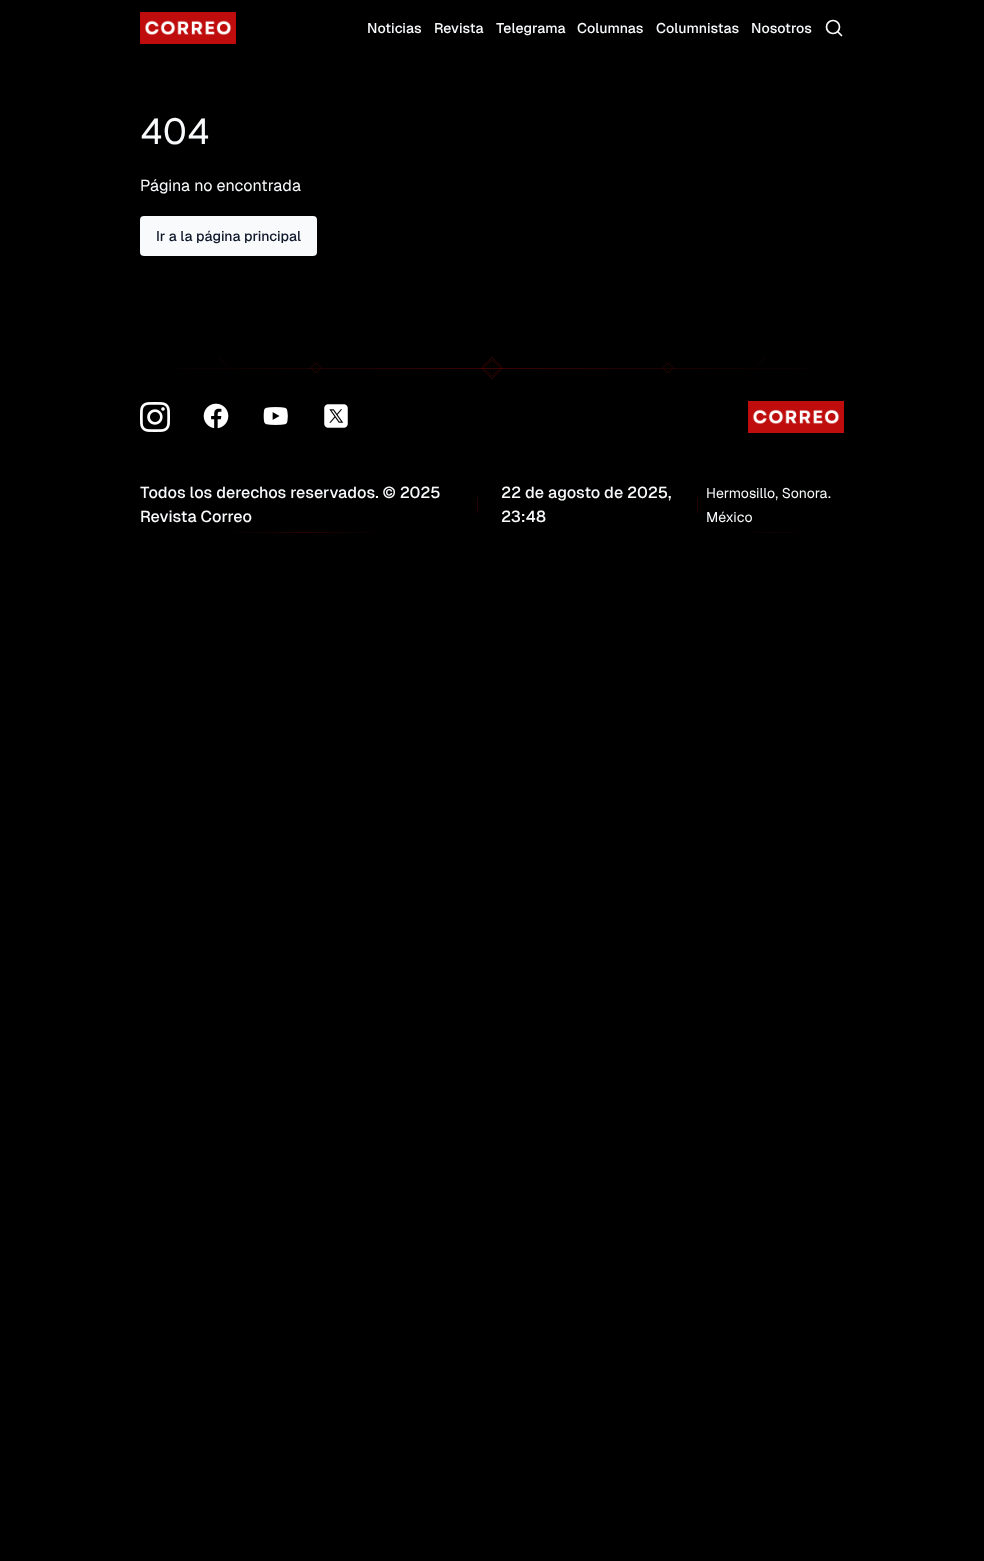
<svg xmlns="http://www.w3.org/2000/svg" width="984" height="1561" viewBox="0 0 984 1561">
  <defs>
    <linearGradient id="g1" gradientUnits="userSpaceOnUse" x1="140" y1="369" x2="844" y2="369"><stop offset="0" stop-color="rgb(0,0,0)"/><stop offset="0.5" stop-color="rgb(57,4,4)"/><stop offset="1" stop-color="rgb(0,0,0)"/></linearGradient>
    <linearGradient id="g2" gradientUnits="userSpaceOnUse" x1="218" y1="357" x2="241" y2="380"><stop offset="0" stop-color="rgb(191,13,13)" stop-opacity="0.1"/><stop offset="1" stop-color="rgb(191,13,13)" stop-opacity="0"/></linearGradient>
    <linearGradient id="g3" gradientUnits="userSpaceOnUse" x1="766" y1="357" x2="743" y2="380"><stop offset="0" stop-color="rgb(191,13,13)" stop-opacity="0.1"/><stop offset="1" stop-color="rgb(191,13,13)" stop-opacity="0"/></linearGradient>
    <linearGradient id="g4" gradientUnits="userSpaceOnUse" x1="222" y1="533" x2="387" y2="533"><stop offset="0" stop-color="rgb(0,0,0)"/><stop offset="0.5" stop-color="rgb(38,3,3)"/><stop offset="1" stop-color="rgb(0,0,0)"/></linearGradient>
    <linearGradient id="g5" gradientUnits="userSpaceOnUse" x1="740" y1="533" x2="809" y2="533"><stop offset="0" stop-color="rgb(0,0,0)"/><stop offset="0.5" stop-color="rgb(19,1,1)"/><stop offset="1" stop-color="rgb(0,0,0)"/></linearGradient>
  </defs>
  <rect width="100%" height="100%" fill="rgb(0,0,0)"/>
  <image x="140" y="12" width="96" height="32" href="pic1.png"/>
  <g font-family="Geist" font-size="14" font-weight="500" fill="rgb(248,250,252)">
    <text x="367" y="33">Noticias</text>
    <text x="434" y="33">Revista</text>
    <text x="496" y="33">Telegrama</text>
    <text x="577" y="33">Columnas</text>
    <text x="656" y="33">Columnistas</text>
    <text x="751" y="33">Nosotros</text>
  </g>
  <circle cx="833" cy="27" r="6.5" fill="none" stroke="rgb(248,250,252)" stroke-width="1.7"/>
  <path d="M841.5 35.5L838 32" fill="none" stroke="rgb(248,250,252)" stroke-width="1.7" stroke-linecap="round" stroke-linejoin="round"/>
  <text x="140" y="144" font-family="Geist" font-size="36" fill="rgb(248,250,252)">404</text>
  <text x="140" y="191" font-family="Geist" font-size="16" fill="rgb(248,250,252)">Página no encontrada</text>
  <rect x="140" y="216" width="177" height="40" rx="4" fill="rgb(248,250,252)"/>
  <text x="156" y="241" font-family="Geist" font-size="14" font-weight="500" fill="rgb(15,23,42)">Ir a la página principal</text>
  <rect x="155" y="368" width="674" height="1" fill="url(#g1)"/>
  <path d="M218.5 357L241.5 379.5L240.5 380L218 357.5Z" fill="url(#g2)"/>
  <path d="M316 363L321 368L316 373L311 368Z" fill="none" stroke="rgba(191,13,13,0.2)"/>
  <path d="M492 357.5L502.5 368L492 378.5L481.5 368Z" fill="none" stroke="rgba(191,13,13,0.3)"/>
  <path d="M492 360L500 368L492 376L484 368Z" fill="none" stroke="rgba(191,13,13,0.2)"/>
  <path d="M668 363L673 368L668 373L663 368Z" fill="none" stroke="rgba(191,13,13,0.2)"/>
  <path d="M742.5 379.5L765.5 357L766 357.5L743.5 380Z" fill="url(#g3)"/>
  <image x="140" y="402" width="30" height="30" href="pic2.png"/>
  <image x="203" y="403" width="26" height="26" href="pic3.png"/>
  <image x="263" y="407" width="25" height="18" href="pic4.png"/>
  <image x="324" y="404" width="24" height="24" href="pic5.png"/>
  <image x="748" y="401" width="96" height="32" href="pic1.png"/>
  <g font-family="Geist" font-size="16" font-weight="500" fill="rgb(248,250,252)">
    <text>
      <tspan x="140" y="498">Todos los derechos reservados. © 2025</tspan>
      <tspan x="140" y="522">Revista Correo</tspan>
    </text>
  </g>
  <rect x="222" y="532" width="165" height="1" fill="url(#g4)"/>
  <text x="501" y="498" font-family="Geist" font-size="16" font-weight="500" fill="rgb(248,250,252)">22 de agosto de 2025,</text>
  <rect x="477" y="497" width="1" height="16" fill="rgb(38,3,3)"/>
  <rect x="697" y="497" width="1" height="16" fill="rgb(38,3,3)"/>
  <text x="501" y="522" font-family="Geist" font-size="16" font-weight="500" fill="rgb(248,250,252)">23:48</text>
  <g font-family="Geist" font-size="14" fill="rgb(248,250,252)">
    <text>
      <tspan x="706" y="498">Hermosillo, Sonora.</tspan>
      <tspan x="706" y="522">México</tspan>
    </text>
  </g>
  <rect x="740" y="532" width="69" height="1" fill="url(#g5)"/>
</svg>
